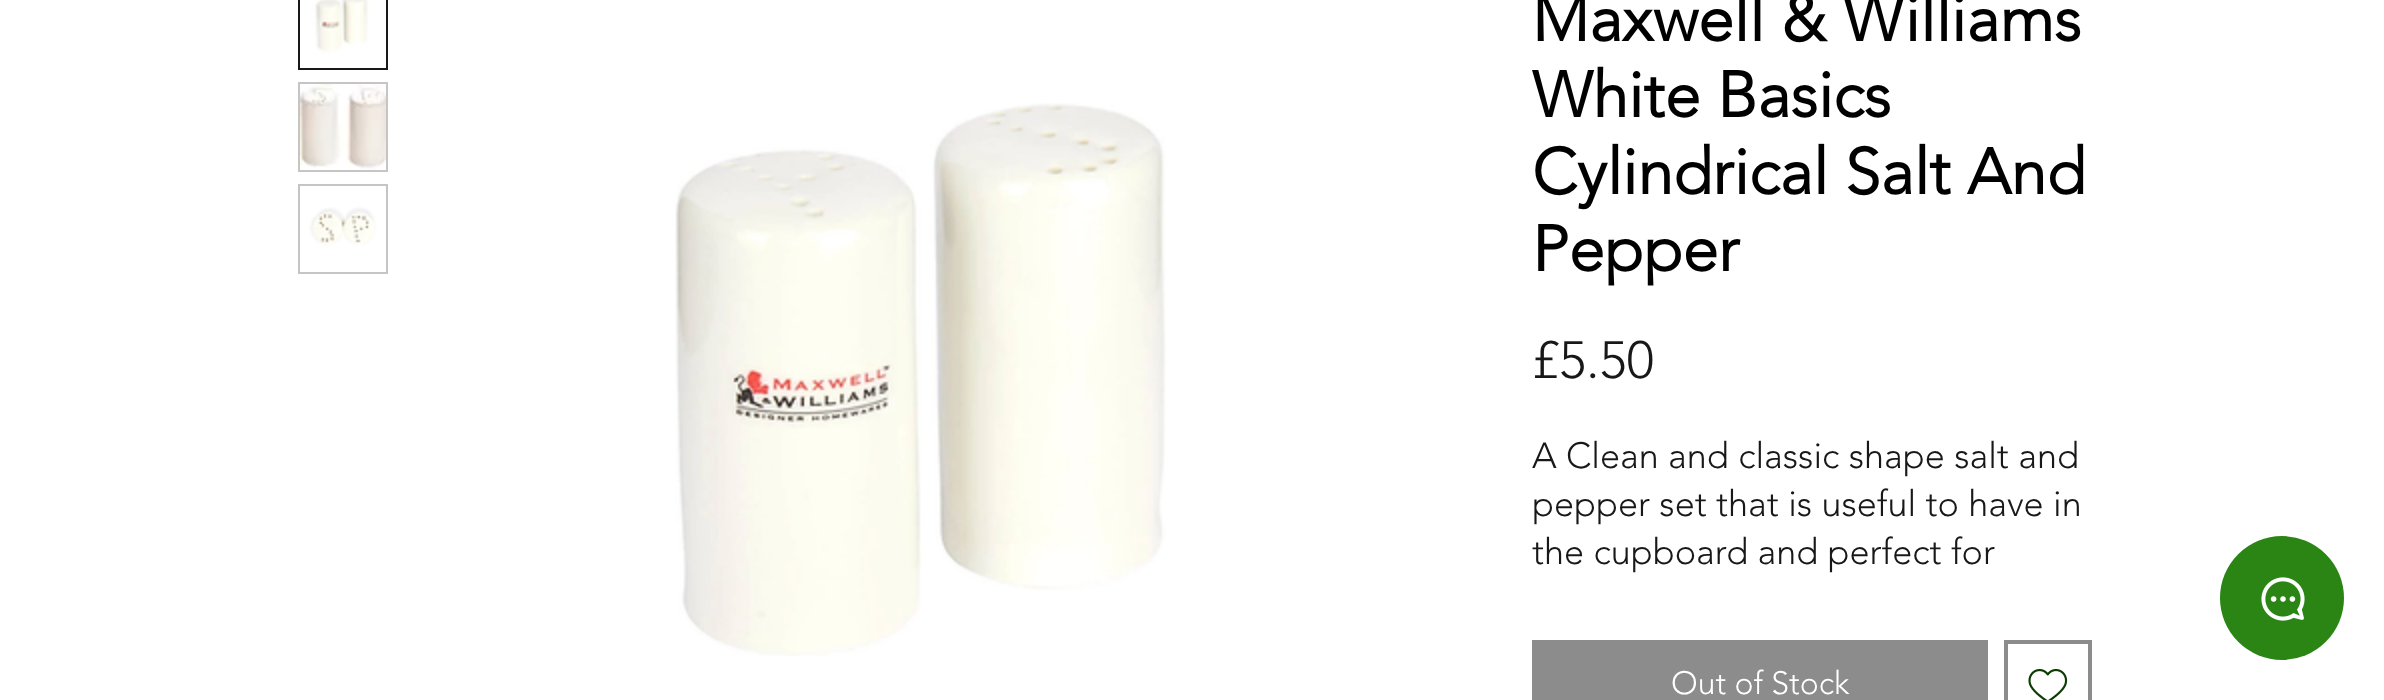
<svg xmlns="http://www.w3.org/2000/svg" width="2384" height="700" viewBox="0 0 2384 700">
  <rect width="100%" height="100%" fill="rgb(255,255,255)"/>
  <rect x="299" y="-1" width="88" height="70" fill="none" stroke="rgb(24,24,24)" stroke-width="2"/>
  <image x="300" y="0" width="86" height="68" href="pic1.png"/>
  <rect x="298" y="82" width="90" height="90" fill="rgb(197,197,197)"/>
  <image x="300" y="84" width="86" height="86" href="pic2.png"/>
  <rect x="298" y="184" width="90" height="90" fill="rgb(197,197,197)"/>
  <image x="300" y="186" width="86" height="86" href="pic3.png"/>
  <image x="675" y="103" width="491" height="553" href="pic4.png"/>
  <g font-family="'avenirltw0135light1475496'" font-size="64" font-weight="bold" fill="rgb(0,0,0)">
    <text>
      <tspan x="1532" y="41">Maxwell &amp; Williams</tspan>
      <tspan x="1532" y="117">White Basics</tspan>
      <tspan x="1532" y="194">Cylindrical Salt And</tspan>
      <tspan x="1532" y="271">Pepper</tspan>
    </text>
  </g>
  <text x="1532" y="378" font-family="'avenirltw0135light1475496'" font-size="52" font-weight="300" fill="rgb(24,24,24)">£5.50</text>
  <g font-family="'avenirltw0135light1475496'" font-size="36" font-weight="300" fill="rgb(24,24,24)">
    <text>
      <tspan x="1532" y="468">A Clean and classic shape salt and</tspan>
      <tspan x="1532" y="516">pepper set that is useful to have in</tspan>
      <tspan x="1532" y="564">the cupboard and perfect for</tspan>
    </text>
  </g>
  <rect x="1532" y="640" width="456" height="60" fill="rgb(140,140,140)"/>
  <text x="1671" y="694" font-family="'avenirltw0135light1475496'" font-size="32" font-weight="300" fill="rgb(255,255,255)">Out of Stock</text>
  <rect x="2006" y="642" width="84" height="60" fill="none" stroke="rgb(140,140,140)" stroke-width="4"/>
  <image x="2028" y="669" width="40" height="31" href="pic5.png"/>
  <circle cx="2282" cy="598" r="62" fill="rgb(42,133,20)"/>
  <image x="2261" y="577" width="44" height="44" href="pic6.png"/>
</svg>
